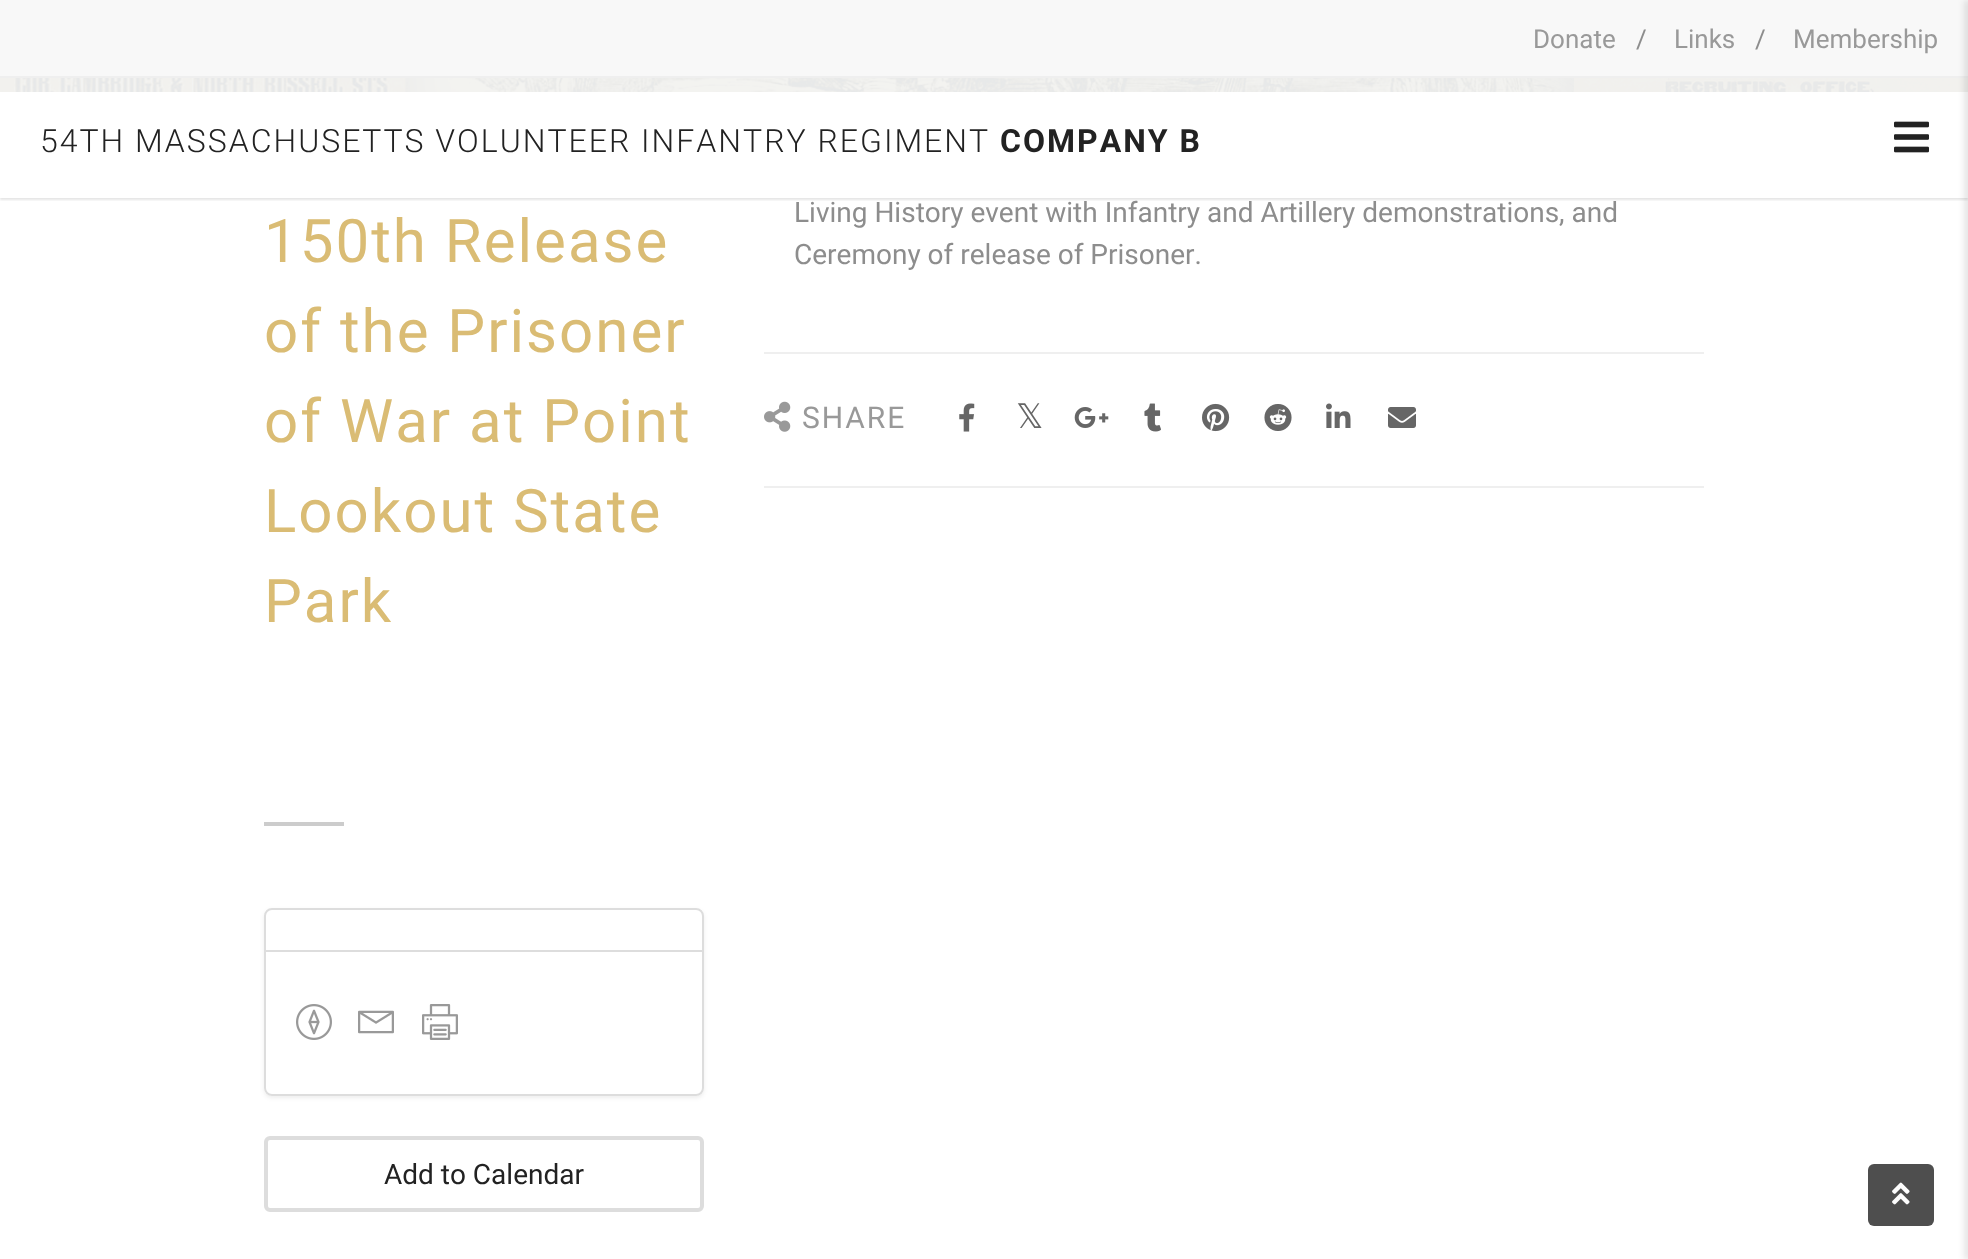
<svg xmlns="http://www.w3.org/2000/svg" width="1968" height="1259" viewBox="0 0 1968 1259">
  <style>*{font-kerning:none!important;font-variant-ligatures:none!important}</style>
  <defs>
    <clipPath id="clip1"><rect x="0" y="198" width="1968" height="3"/></clipPath>
    <clipPath id="clip2"><path d="M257 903H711V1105H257ZM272 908H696C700.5 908 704 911.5 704 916V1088C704 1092.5 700.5 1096 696 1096H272C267.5 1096 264 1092.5 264 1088V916C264 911.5 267.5 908 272 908Z" clip-rule="evenodd"/></clipPath>
  </defs>
  <rect width="100%" height="100%" fill="rgb(255,255,255)"/>
  <rect x="0" y="0" width="1968" height="76" fill="rgb(248,248,248)"/>
  <rect x="0" y="76" width="1968" height="2" fill="rgb(239,239,239)"/>
  <text x="1533" y="48" font-family="Roboto" font-size="26" fill="rgb(153,153,153)">Donate</text>
  <text x="1636" y="48" font-family="Roboto" font-size="26" fill="rgb(141,141,141)">/</text>
  <text x="1674" y="48" font-family="Roboto" font-size="26" fill="rgb(153,153,153)">Links</text>
  <text x="1755" y="48" font-family="Roboto" font-size="26" fill="rgb(141,141,141)">/</text>
  <text x="1793" y="48" font-family="Roboto" font-size="26" fill="rgb(153,153,153)">Membership</text>
  <image x="0" y="78" width="1968" height="14" href="pic1.png"/>
  <rect x="0" y="78" width="1968" height="14" fill="rgba(15,47,76,0.5)"/>
  <g clip-path="url(#clip1)">
    <rect x="0" y="80" width="1968" height="120" fill="rgba(0,0,0,0.1)" filter="blur(1px)"/>
  </g>
  <rect x="0" y="78" width="1968" height="14" fill="rgba(255,255,255,0.9)"/>
  <text x="40" y="152" font-family="Roboto" font-size="32" font-weight="300" letter-spacing="2" fill="rgb(34,34,34)">54TH MASSACHUSETTS VOLUNTEER INFANTRY REGIMENT</text>
  <text x="1000" y="152" font-family="Roboto" font-size="32" font-weight="bold" letter-spacing="2" fill="rgb(34,34,34)">COMPANY B</text>
  <image x="1894" y="121" width="35" height="32" href="pic2.png"/>
  <g font-family="Roboto" font-size="60" letter-spacing="2" fill="rgb(218,188,116)">
    <text>
      <tspan x="264" y="262">150th Release</tspan>
      <tspan x="264" y="352">of the Prisoner</tspan>
      <tspan x="264" y="442">of War at Point</tspan>
      <tspan x="264" y="532">Lookout State</tspan>
      <tspan x="264" y="622">Park</tspan>
    </text>
  </g>
  <rect x="264" y="822" width="80" height="4" fill="rgb(204,204,204)"/>
  <g clip-path="url(#clip2)">
    <rect x="264" y="910" width="440" height="188" rx="8" fill="rgba(0,0,0,0.07)" filter="blur(2px)"/>
  </g>
  <path d="M272 909H696C700 909 703 912 703 916V951H265V916C265 912 268 909 272 909Z" fill="none" stroke="rgb(221,221,221)" stroke-width="2"/>
  <path d="M265 951H703V1088C703 1092 700 1095 696 1095H272C268 1095 265 1092 265 1088Z" fill="rgb(255,255,255)" stroke="rgb(221,221,221)" stroke-width="2"/>
  <image x="296" y="1004" width="36" height="36" href="pic3.png"/>
  <image x="358" y="1010" width="36" height="24" href="pic4.png"/>
  <image x="422" y="1004" width="36" height="36" href="pic5.png"/>
  <rect x="266" y="1138" width="436" height="72" rx="4" fill="none" stroke="rgb(221,221,221)" stroke-width="4"/>
  <text x="384" y="1184" font-family="Roboto" font-size="28" fill="rgb(34,34,34)">Add to Calendar</text>
  <g font-family="Roboto" font-size="28" fill="rgb(141,141,141)">
    <text>
      <tspan x="794" y="222">Living History event with Infantry and Artillery demonstrations, and</tspan>
      <tspan x="794" y="264">Ceremony of release of Prisoner.</tspan>
    </text>
  </g>
  <rect x="764" y="352" width="940" height="2" fill="rgb(239,239,239)"/>
  <rect x="764" y="486" width="940" height="2" fill="rgb(239,239,239)"/>
  <image x="764" y="401" width="27" height="31" href="pic6.png"/>
  <text x="802" y="428" font-family="Roboto" font-size="30" letter-spacing="2" fill="rgb(153,153,153)">SHARE</text>
  <image x="959" y="403" width="16" height="29" href="pic7.png"/>
  <text x="1016" y="428" font-family="DejaVu Sans" font-size="34" fill="rgb(102,102,102)">𝕏</text>
  <image x="1074" y="407" width="35" height="21" href="pic8.png"/>
  <image x="1144" y="403" width="17" height="29" href="pic9.png"/>
  <image x="1202" y="403" width="28" height="29" href="pic10.png"/>
  <image x="1264" y="404" width="28" height="27" href="pic11.png"/>
  <image x="1326" y="403" width="25" height="25" href="pic12.png"/>
  <image x="1388" y="407" width="28" height="21" href="pic13.png"/>
  <rect x="1868" y="1164" width="66" height="62" rx="6" fill="rgb(78,78,78)"/>
  <image x="1892" y="1182" width="18" height="23" href="pic14.png"/>
  <rect x="1964" y="0" width="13" height="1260" fill="rgba(0,0,0,0.1)" filter="blur(3px)"/>
</svg>
